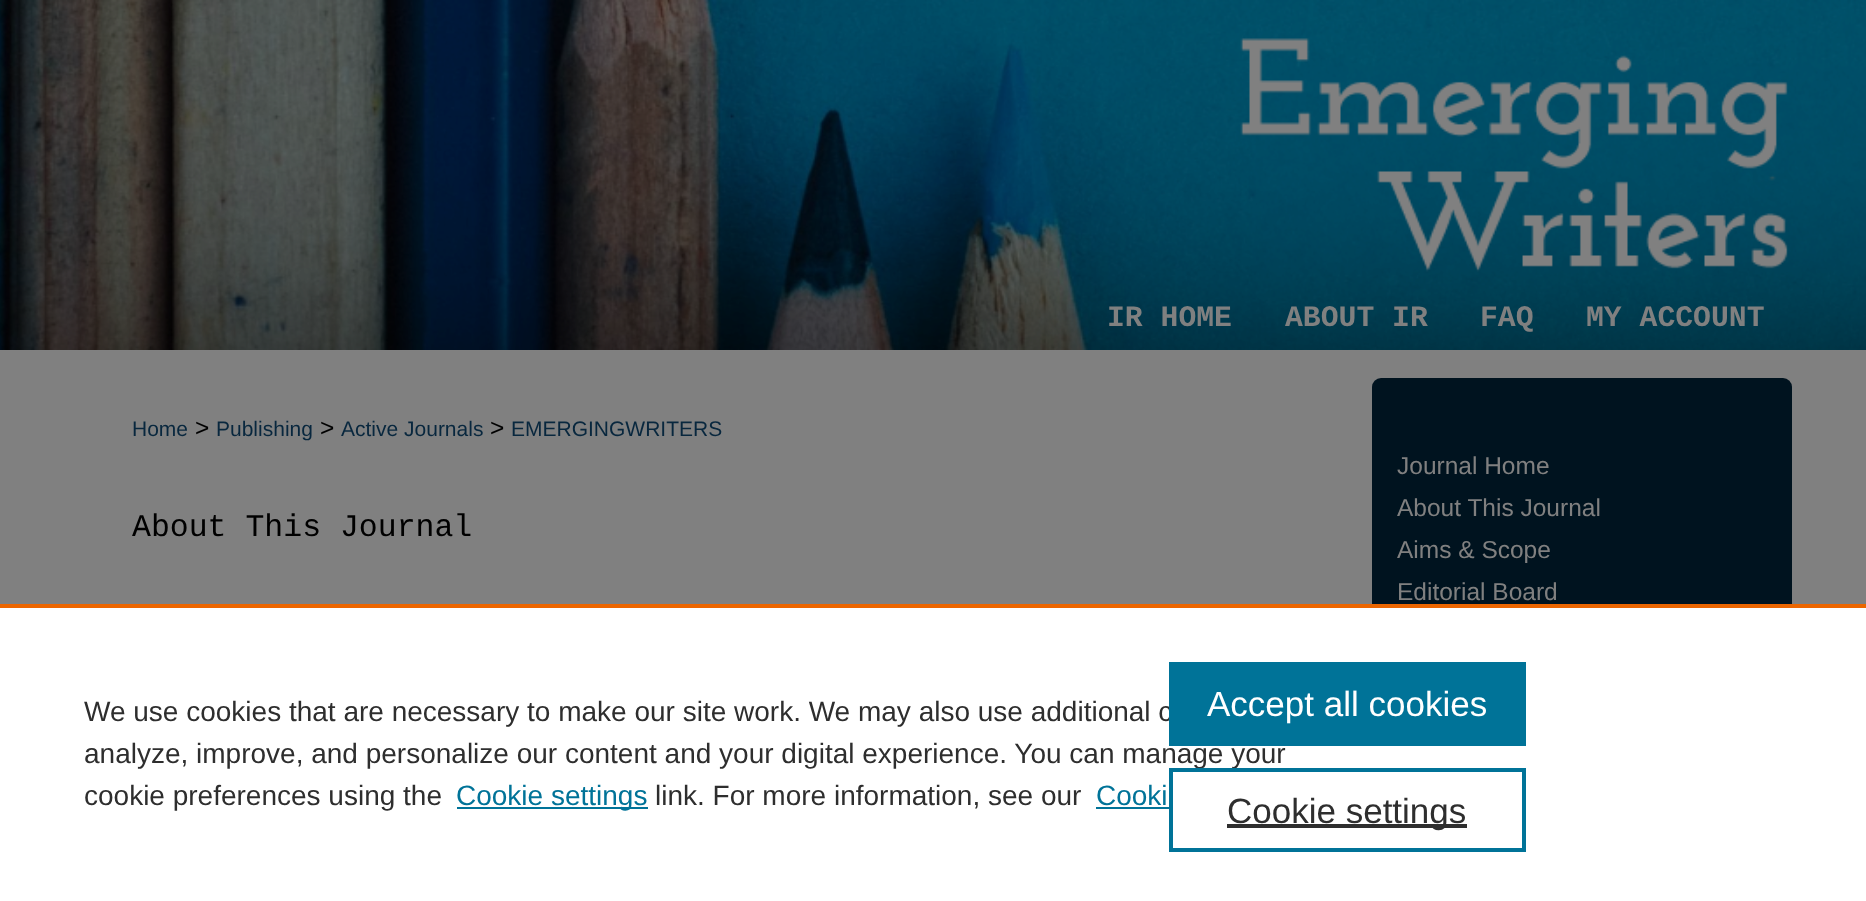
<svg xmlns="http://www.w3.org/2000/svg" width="1866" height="901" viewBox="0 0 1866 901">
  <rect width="100%" height="100%" fill="rgb(128,128,128)"/>
  <image x="0" y="0" width="1866" height="350" href="pic1.png"/>
  <image x="1240" y="38" width="548" height="234" href="pic2.png"/>
  <g font-family="Liberation Mono" font-size="29.75" font-weight="bold" fill="rgb(128,128,128)">
    <text x="1107" y="326">IR HOME</text>
    <text x="1285" y="326">ABOUT IR</text>
    <text x="1480" y="326">FAQ</text>
    <text x="1586" y="326">MY ACCOUNT</text>
  </g>
  <text x="132" y="436" font-family="Liberation Sans" font-size="21" fill="rgb(8,39,62)">Home</text>
  <text x="195" y="436" font-family="Liberation Sans" font-size="24.5" fill="rgb(0,0,0)">&gt;</text>
  <text x="216" y="436" font-family="Liberation Sans" font-size="21" fill="rgb(8,39,62)">Publishing</text>
  <text x="320" y="436" font-family="Liberation Sans" font-size="24.5" fill="rgb(0,0,0)">&gt;</text>
  <text x="341" y="436" font-family="Liberation Sans" font-size="21" fill="rgb(8,39,62)">Active Journals</text>
  <text x="490" y="436" font-family="Liberation Sans" font-size="24.5" fill="rgb(0,0,0)">&gt;</text>
  <text x="511" y="436" font-family="Liberation Sans" font-size="21" fill="rgb(8,39,62)">EMERGINGWRITERS</text>
  <text x="132" y="536" font-family="Liberation Mono" font-size="31.5" fill="rgb(0,0,0)">About This Journal</text>
  <rect x="1372" y="378" width="420" height="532" rx="9" fill="rgb(0,19,31)"/>
  <g font-family="Liberation Sans" font-size="24.5" fill="rgb(128,128,128)">
    <text>
      <tspan x="1397" y="474">Journal Home</tspan>
      <tspan x="1397" y="516">About This Journal</tspan>
      <tspan x="1397" y="558">Aims &amp; Scope</tspan>
      <tspan x="1397" y="600">Editorial Board</tspan>
    </text>
  </g>
  <rect x="0" y="608" width="1866" height="293" fill="rgb(255,255,255)"/>
  <rect x="0" y="604" width="1866" height="4" fill="rgb(235,101,0)"/>
  <g font-family="Liberation Sans" font-size="28" fill="rgb(46,46,46)">
    <text>
      <tspan x="84" y="721">We use cookies that are necessary to make our site work. We may also use additional c</tspan>
      <tspan x="84" y="763">analyze, improve, and personalize our content and your digital experience. You can manage your</tspan>
      <tspan x="84" y="805">cookie preferences using the</tspan>
    </text>
  </g>
  <rect x="457" y="807" width="191" height="2" fill="rgb(0,115,152)"/>
  <text x="456" y="805" font-family="Liberation Sans" font-size="28" fill="rgb(0,115,152)">Cookie settings</text>
  <text x="655" y="805" font-family="Liberation Sans" font-size="28" fill="rgb(46,46,46)">link. For more information, see our</text>
  <text x="1096" y="805" font-family="Liberation Sans" font-size="28" fill="rgb(0,115,152)">Cooki</text>
  <rect x="1096" y="807" width="73" height="2" fill="rgb(0,115,152)"/>
  <rect x="1169" y="662" width="357" height="84" fill="rgb(0,115,152)"/>
  <text x="1207" y="716" font-family="Liberation Sans" font-size="35" fill="rgb(255,255,255)">Accept all cookies</text>
  <rect x="1171" y="770" width="353" height="80" fill="none" stroke="rgb(0,115,152)" stroke-width="4"/>
  <rect x="1227" y="824" width="240" height="4" fill="rgb(46,46,46)"/>
  <text x="1227" y="823" font-family="Liberation Sans" font-size="35" fill="rgb(46,46,46)">Cookie settings</text>
</svg>
